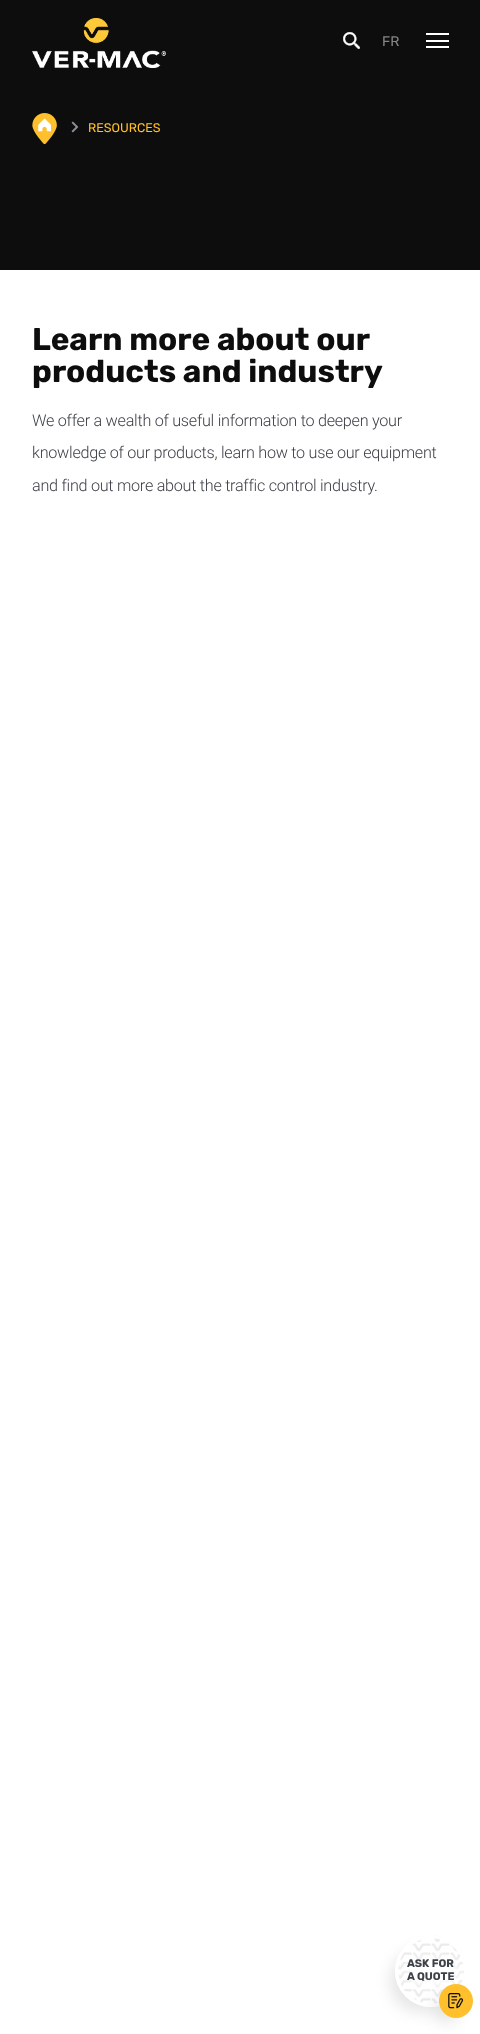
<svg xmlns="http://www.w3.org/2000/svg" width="480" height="2034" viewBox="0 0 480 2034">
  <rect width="100%" height="100%" fill="rgb(13,13,13)"/>
  <image x="32" y="18" width="134" height="50" href="pic1.png"/>
  <image x="343" y="32" width="17" height="17" href="pic2.png"/>
  <text x="382" y="46" font-family="Rubik" font-size="14" fill="rgb(134,134,134)">FR</text>
  <rect x="426" y="33" width="23" height="2" fill="rgb(255,255,255)"/>
  <rect x="426" y="40" width="23" height="2" fill="rgb(255,255,255)"/>
  <rect x="426" y="46" width="23" height="2" fill="rgb(255,255,255)"/>
  <image x="32" y="113" width="25" height="31" href="pic3.png"/>
  <image x="71" y="121" width="8" height="12" href="pic4.png"/>
  <text x="88" y="132" font-family="Rubik" font-size="12.5" fill="rgb(255,192,44)">RESOURCES</text>
  <rect x="0" y="270" width="480" height="1764" fill="rgb(255,255,255)"/>
  <g font-family="Rubik" font-size="31.5" font-weight="bold" fill="rgb(13,13,13)">
    <text>
      <tspan x="32" y="350">Learn more about our</tspan>
      <tspan x="32" y="382">products and industry</tspan>
    </text>
  </g>
  <g font-family="Roboto" font-size="16.2" font-weight="300" letter-spacing="-0.27" fill="rgb(61,65,72)">
    <text>
      <tspan x="32" y="426">We offer a wealth of useful information to deepen your</tspan>
      <tspan x="32" y="458">knowledge of our products, learn how to use our equipment</tspan>
    </text>
    <text x="32" y="491">and find out more about the traffic control industry.</text>
  </g>
  <rect x="390" y="1950" width="62" height="62" rx="31" fill="rgba(0,0,0,0.1)" filter="blur(7.5px)"/>
  <circle cx="431" cy="1971" r="36" fill="rgb(255,255,255)"/>
  <image x="395" y="1935" width="72" height="72" href="pic5.png"/>
  <circle cx="431" cy="1971" r="34.5" fill="none" stroke="rgb(255,255,255)" stroke-width="3"/>
  <g font-family="Rubik" font-size="11" font-weight="bold" fill="rgb(61,65,72)">
    <text>
      <tspan x="407" y="1967">ASK FOR</tspan>
      <tspan x="407" y="1980">A QUOTE</tspan>
    </text>
  </g>
  <rect x="434" y="1999" width="24" height="24" rx="12" fill="rgba(0,0,0,0.1)" filter="blur(7.5px)"/>
  <circle cx="456" cy="2001" r="17" fill="rgb(255,192,44)"/>
  <image x="448" y="1993" width="16" height="16" href="pic6.png"/>
</svg>
